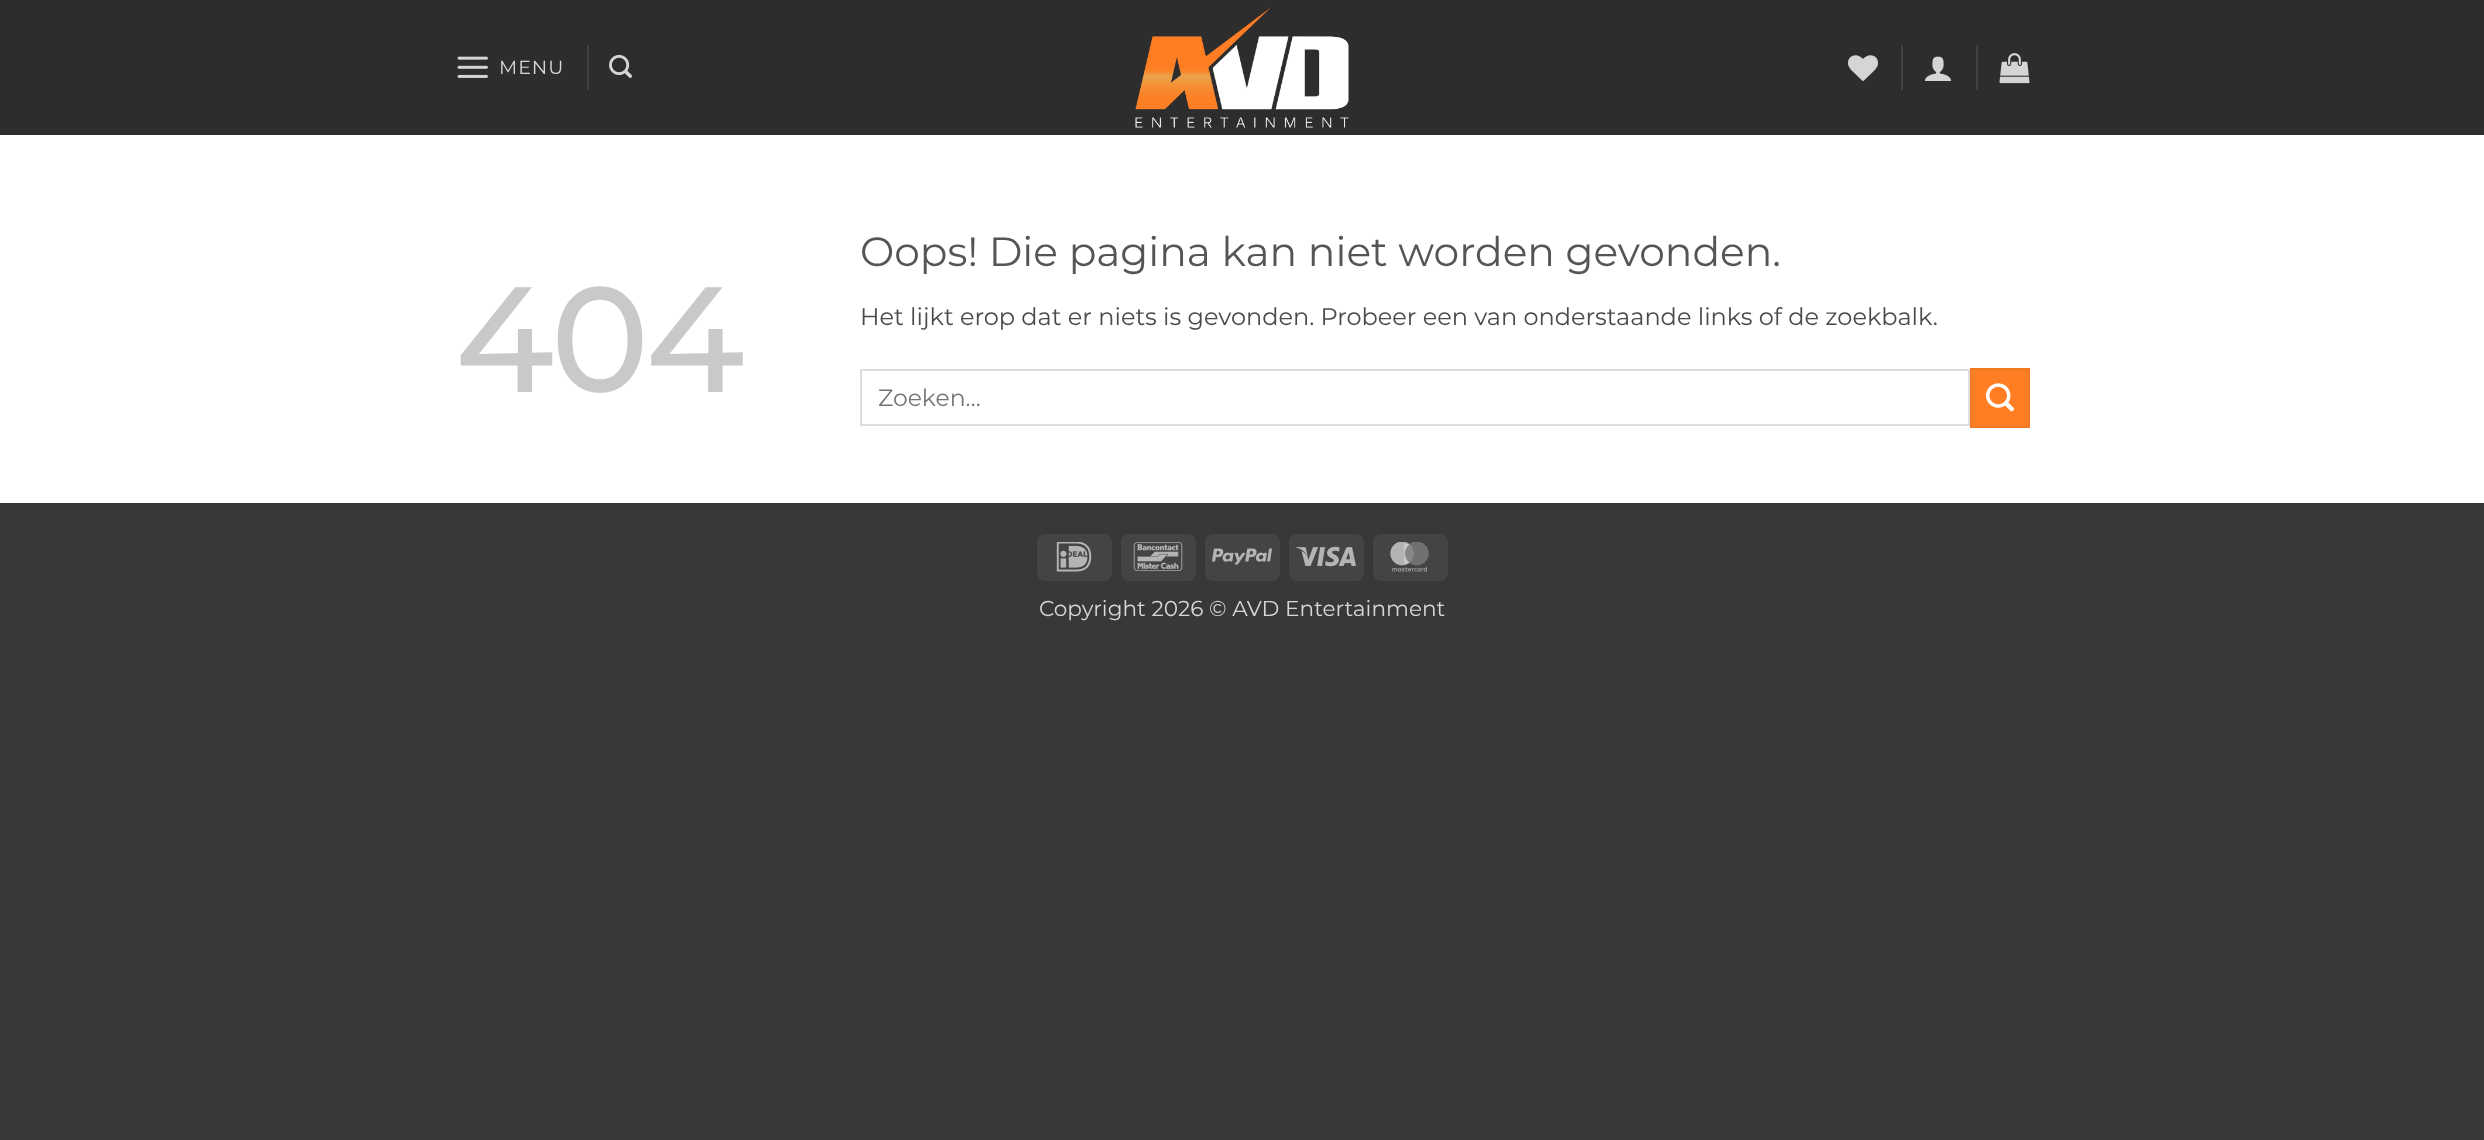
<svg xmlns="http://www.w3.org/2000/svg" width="2484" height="1140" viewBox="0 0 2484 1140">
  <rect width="100%" height="100%" fill="rgb(56,56,56)"/>
  <rect x="0" y="135" width="2484" height="368" fill="rgb(255,255,255)"/>
  <rect x="0" y="0" width="2484" height="135" fill="rgb(45,45,45)"/>
  <image x="457" y="56" width="31" height="22" href="pic1.png"/>
  <text x="499" y="74" font-family="Montserrat" font-size="19" font-weight="100" letter-spacing="1" fill="rgb(215,215,215)">MENU</text>
  <rect x="587" y="45" width="2" height="45" fill="rgb(66,66,66)"/>
  <image x="609" y="54" width="23" height="24" href="pic2.png"/>
  <image x="1135" y="7" width="214" height="121" href="pic3.png"/>
  <image x="1848" y="55" width="30" height="26" href="pic4.png"/>
  <rect x="1901" y="45" width="2" height="45" fill="rgb(66,66,66)"/>
  <image x="1924" y="56" width="28" height="25" href="pic5.png"/>
  <rect x="1976" y="45" width="2" height="45" fill="rgb(66,66,66)"/>
  <image x="1999" y="53" width="31" height="31" href="pic6.png"/>
  <text x="455" y="392" font-family="Montserrat" font-size="144" font-weight="bold" fill="rgb(201,201,201)">404</text>
  <text x="860" y="266" font-family="Montserrat" font-size="40.8" font-weight="100" fill="rgb(85,85,85)">Oops! Die pagina kan niet worden gevonden.</text>
  <text x="860" y="325" font-family="Montserrat" font-size="24" font-weight="100" fill="rgb(74,74,74)">Het lijkt erop dat er niets is gevonden. Probeer een van onderstaande links of de zoekbalk.</text>
  <rect x="861" y="370" width="1108" height="55" fill="none" stroke="rgb(221,221,221)" stroke-width="2"/>
  <text x="878" y="406" font-family="Montserrat" font-size="23.5" font-weight="100" fill="rgb(117,117,117)">Zoeken…</text>
  <rect x="1971" y="369" width="58" height="58" fill="rgb(255,126,35)" stroke="rgb(242,120,33)" stroke-width="2"/>
  <image x="1986" y="383" width="28" height="29" href="pic7.png"/>
  <rect x="1037" y="534" width="75" height="47" rx="8" fill="rgb(68,68,68)"/>
  <image x="1056" y="542" width="36" height="30" href="pic8.png"/>
  <rect x="1121" y="534" width="75" height="47" rx="8" fill="rgb(68,68,68)"/>
  <image x="1133" y="542" width="50" height="29" href="pic9.png"/>
  <rect x="1205" y="534" width="75" height="47" rx="8" fill="rgb(68,68,68)"/>
  <image x="1212" y="548" width="60" height="17" href="pic10.png"/>
  <rect x="1289" y="534" width="75" height="47" rx="8" fill="rgb(68,68,68)"/>
  <image x="1296" y="546" width="60" height="21" href="pic11.png"/>
  <rect x="1373" y="534" width="75" height="47" rx="8" fill="rgb(68,68,68)"/>
  <image x="1390" y="542" width="39" height="30" href="pic12.png"/>
  <text x="1039" y="616" font-family="Montserrat" font-size="21.6" font-weight="100" fill="rgb(215,215,215)">Copyright 2026 © AVD Entertainment</text>
</svg>
